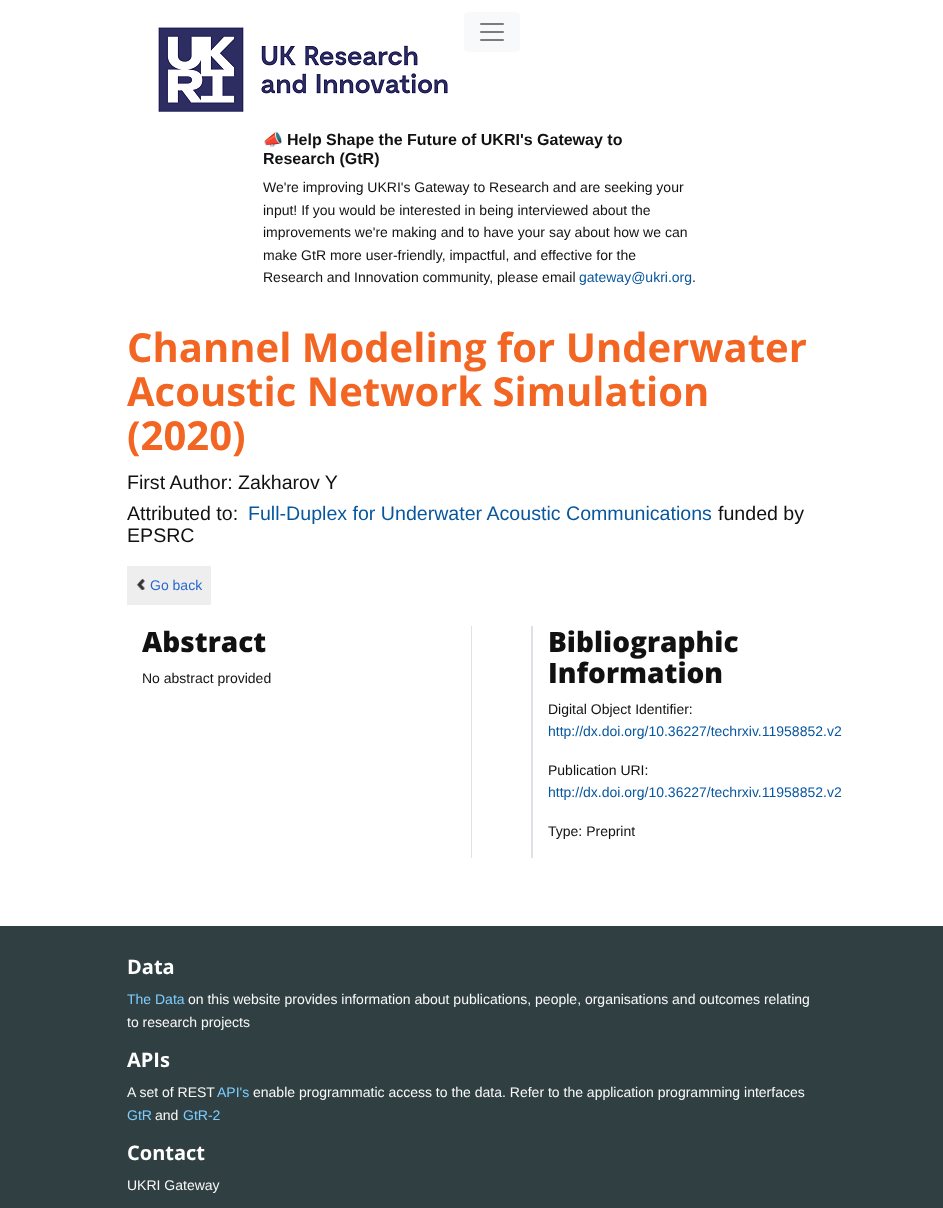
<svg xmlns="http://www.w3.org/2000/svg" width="943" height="1208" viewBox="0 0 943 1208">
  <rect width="100%" height="100%" fill="rgb(255,255,255)"/>
  <image x="158" y="27" width="290" height="85" href="pic1.png"/>
  <rect x="464" y="12" width="56" height="40" rx="4" fill="rgb(248,249,250)"/>
  <image x="480" y="23" width="24" height="18" href="pic2.png"/>
  <text x="263" y="145" font-family="Noto Color Emoji" font-size="16" font-weight="bold" fill="rgb(17,17,17)">📣</text>
  <g font-family="Liberation Sans" font-size="16" font-weight="bold" fill="rgb(17,17,17)">
    <text x="287" y="145">Help Shape the Future of UKRI's Gateway to</text>
    <text x="263" y="164">Research (GtR)</text>
  </g>
  <g font-family="Liberation Sans" font-size="14" fill="rgb(17,17,17)">
    <text>
      <tspan x="263" y="192">We're improving UKRI's Gateway to Research and are seeking your</tspan>
      <tspan x="263" y="215">input! If you would be interested in being interviewed about the</tspan>
      <tspan x="263" y="237">improvements we're making and to have your say about how we can</tspan>
      <tspan x="263" y="260">make GtR more user-friendly, impactful, and effective for the</tspan>
      <tspan x="263" y="282">Research and Innovation community, please email</tspan>
    </text>
  </g>
  <text x="579" y="282" font-family="Liberation Sans" font-size="14" fill="rgb(7,86,158)">gateway@ukri.org</text>
  <text x="692" y="282" font-family="Liberation Sans" font-size="14" fill="rgb(17,17,17)">.</text>
  <g font-family="Open Sans" font-size="40" font-weight="bold" fill="rgb(242,101,34)">
    <text>
      <tspan x="127" y="362">Channel Modeling for Underwater</tspan>
      <tspan x="127" y="406">Acoustic Network Simulation</tspan>
      <tspan x="127" y="450">(2020)</tspan>
    </text>
  </g>
  <g font-family="Liberation Sans" font-size="19.6" fill="rgb(17,17,17)">
    <text>
      <tspan x="127" y="489">First Author: Zakharov Y</tspan>
      <tspan x="127" y="520">Attributed to:</tspan>
    </text>
  </g>
  <text x="248" y="520" font-family="Liberation Sans" font-size="19.6" fill="rgb(7,86,158)">Full-Duplex for Underwater Acoustic Communications</text>
  <g font-family="Liberation Sans" font-size="19.6" fill="rgb(17,17,17)">
    <text x="718" y="520">funded by</text>
    <text x="127" y="542">EPSRC</text>
  </g>
  <rect x="127" y="566" width="84" height="39" fill="rgb(238,238,238)"/>
  <image x="136" y="579" width="9" height="11" href="pic3.png"/>
  <text x="150" y="590" font-family="Liberation Sans" font-size="14" fill="rgb(41,103,205)">Go back</text>
  <rect x="471" y="626" width="1" height="232" fill="rgb(222,226,230)"/>
  <text x="142" y="652" font-family="Open Sans" font-size="28" font-weight="800" fill="rgb(17,17,17)">Abstract</text>
  <text x="142" y="683" font-family="Liberation Sans" font-size="14" fill="rgb(17,17,17)">No abstract provided</text>
  <rect x="531" y="626" width="2" height="232" fill="rgb(222,226,230)"/>
  <g font-family="Open Sans" font-size="28" font-weight="800" fill="rgb(17,17,17)">
    <text>
      <tspan x="548" y="652">Bibliographic</tspan>
      <tspan x="548" y="683">Information</tspan>
    </text>
  </g>
  <text x="548" y="714" font-family="Liberation Sans" font-size="14" fill="rgb(17,17,17)">Digital Object Identifier:</text>
  <text x="548" y="736" font-family="Liberation Sans" font-size="14" fill="rgb(7,86,158)">http://dx.doi.org/10.36227/techrxiv.11958852.v2</text>
  <text x="548" y="775" font-family="Liberation Sans" font-size="14" fill="rgb(17,17,17)">Publication URI:</text>
  <text x="548" y="797" font-family="Liberation Sans" font-size="14" fill="rgb(7,86,158)">http://dx.doi.org/10.36227/techrxiv.11958852.v2</text>
  <text x="548" y="836" font-family="Liberation Sans" font-size="14" fill="rgb(17,17,17)">Type: Preprint</text>
  <rect x="0" y="926" width="943" height="282" fill="rgb(48,63,66)"/>
  <text x="127" y="974" font-family="Open Sans" font-size="20" font-weight="bold" fill="rgb(255,255,255)">Data</text>
  <text x="127" y="1004" font-family="Liberation Sans" font-size="14" fill="rgb(125,206,255)">The Data</text>
  <g font-family="Liberation Sans" font-size="14" fill="rgb(248,248,248)">
    <text x="188" y="1004">on this website provides information about publications, people, organisations and outcomes relating</text>
    <text x="127" y="1027">to research projects</text>
  </g>
  <text x="127" y="1067" font-family="Open Sans" font-size="20" font-weight="bold" fill="rgb(255,255,255)">APIs</text>
  <text x="127" y="1097" font-family="Liberation Sans" font-size="14" fill="rgb(248,248,248)">A set of REST</text>
  <text x="217" y="1097" font-family="Liberation Sans" font-size="14" fill="rgb(125,206,255)">API's</text>
  <text x="253" y="1097" font-family="Liberation Sans" font-size="14" fill="rgb(248,248,248)">enable programmatic access to the data. Refer to the application programming interfaces</text>
  <text x="127" y="1120" font-family="Liberation Sans" font-size="14" fill="rgb(125,206,255)">GtR</text>
  <text x="155" y="1120" font-family="Liberation Sans" font-size="14" fill="rgb(248,248,248)">and</text>
  <text x="183" y="1120" font-family="Liberation Sans" font-size="14" fill="rgb(125,206,255)">GtR-2</text>
  <text x="127" y="1160" font-family="Open Sans" font-size="20" font-weight="bold" fill="rgb(255,255,255)">Contact</text>
  <text x="127" y="1190" font-family="Liberation Sans" font-size="14" fill="rgb(248,248,248)">UKRI Gateway</text>
</svg>
